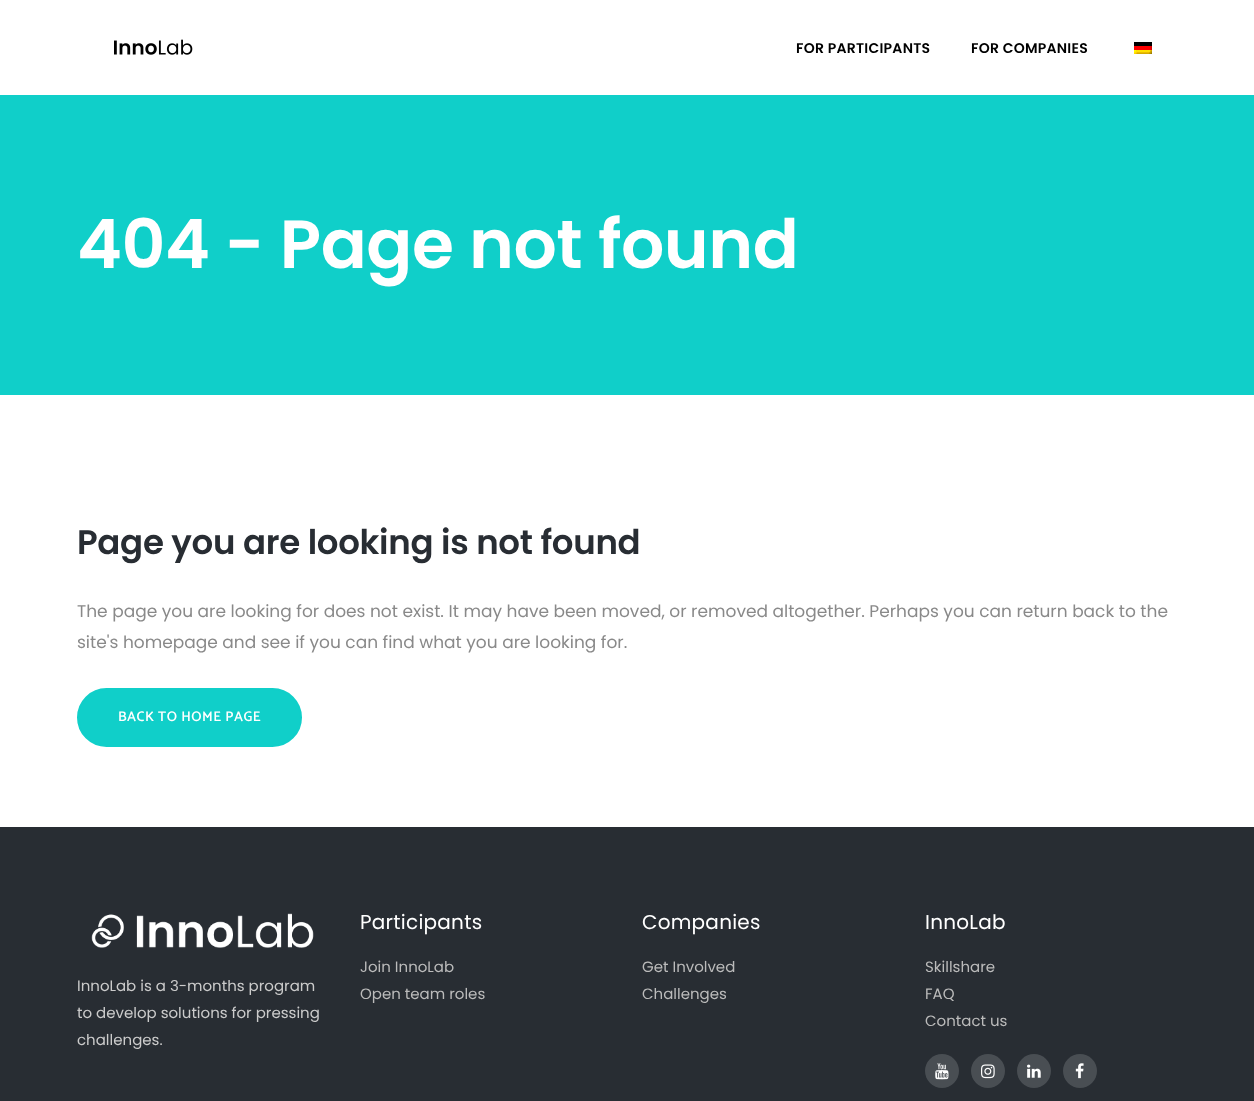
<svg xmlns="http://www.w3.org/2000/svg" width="1254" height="1101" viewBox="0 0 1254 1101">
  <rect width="100%" height="100%" fill="rgb(255,255,255)"/>
  <image x="114" y="39" width="79" height="16" href="pic1.png"/>
  <g font-family="Poppins" font-size="14" font-weight="600" letter-spacing="0.25" fill="rgb(0,0,0)">
    <text x="796" y="53">FOR PARTICIPANTS</text>
    <text x="971" y="53">FOR COMPANIES</text>
  </g>
  <image x="1134" y="42" width="18" height="12" href="pic2.png"/>
  <rect x="0" y="95" width="1254" height="300" fill="rgb(16,207,201)"/>
  <text x="77" y="268" font-family="Poppins" font-size="68" font-weight="600" letter-spacing="-0.5" fill="rgb(255,255,255)">404 - Page not found</text>
  <text x="77" y="554" font-family="Poppins" font-size="34" font-weight="600" letter-spacing="-0.3" fill="rgb(40,45,51)">Page you are looking is not found</text>
  <g font-family="Poppins" font-size="17" fill="rgb(137,137,137)">
    <text>
      <tspan x="77" y="617">The page you are looking for does not exist. It may have been moved, or removed altogether. Perhaps you can return back to the</tspan>
      <tspan x="77" y="648">site's homepage and see if you can find what you are looking for.</tspan>
    </text>
  </g>
  <rect x="78" y="689" width="223" height="57" rx="28.5" fill="rgb(16,207,201)" stroke="rgb(16,207,201)" stroke-width="2"/>
  <text x="118" y="721" font-family="Catamaran" font-size="14" font-weight="600" letter-spacing="0.5" fill="rgb(255,255,255)">BACK TO HOME PAGE</text>
  <rect x="0" y="827" width="1254" height="274" fill="rgb(40,45,51)"/>
  <image x="91" y="913" width="223" height="35" href="pic3.png"/>
  <g font-family="Poppins" font-size="15" fill="rgb(203,203,203)">
    <text>
      <tspan x="77" y="991">InnoLab is a 3-months program</tspan>
      <tspan x="77" y="1018">to develop solutions for pressing</tspan>
      <tspan x="77" y="1045">challenges.</tspan>
    </text>
  </g>
  <text x="360" y="929" font-family="Poppins" font-size="20" letter-spacing="0.25" fill="rgb(255,255,255)">Participants</text>
  <g font-family="Poppins" font-size="15" fill="rgb(187,187,187)">
    <text>
      <tspan x="360" y="972">Join InnoLab</tspan>
      <tspan x="360" y="999">Open team roles</tspan>
    </text>
  </g>
  <text x="642" y="929" font-family="Poppins" font-size="20" letter-spacing="0.25" fill="rgb(255,255,255)">Companies</text>
  <g font-family="Poppins" font-size="15" fill="rgb(187,187,187)">
    <text>
      <tspan x="642" y="972">Get Involved</tspan>
      <tspan x="642" y="999">Challenges</tspan>
    </text>
  </g>
  <text x="925" y="929" font-family="Poppins" font-size="20" letter-spacing="0.25" fill="rgb(255,255,255)">InnoLab</text>
  <g font-family="Poppins" font-size="15" fill="rgb(187,187,187)">
    <text>
      <tspan x="925" y="972">Skillshare</tspan>
      <tspan x="925" y="999">FAQ</tspan>
      <tspan x="925" y="1026">Contact us</tspan>
    </text>
  </g>
  <circle cx="942" cy="1071" r="17" fill="rgb(73,78,83)"/>
  <image x="935" y="1063" width="14" height="17" href="pic4.png"/>
  <circle cx="988" cy="1071" r="17" fill="rgb(73,78,83)"/>
  <image x="981" y="1064" width="14" height="15" href="pic5.png"/>
  <circle cx="1034" cy="1071" r="17" fill="rgb(73,78,83)"/>
  <image x="1027" y="1064" width="14" height="14" href="pic6.png"/>
  <circle cx="1080" cy="1071" r="17" fill="rgb(73,78,83)"/>
  <image x="1075" y="1063" width="9" height="16" href="pic7.png"/>
</svg>
